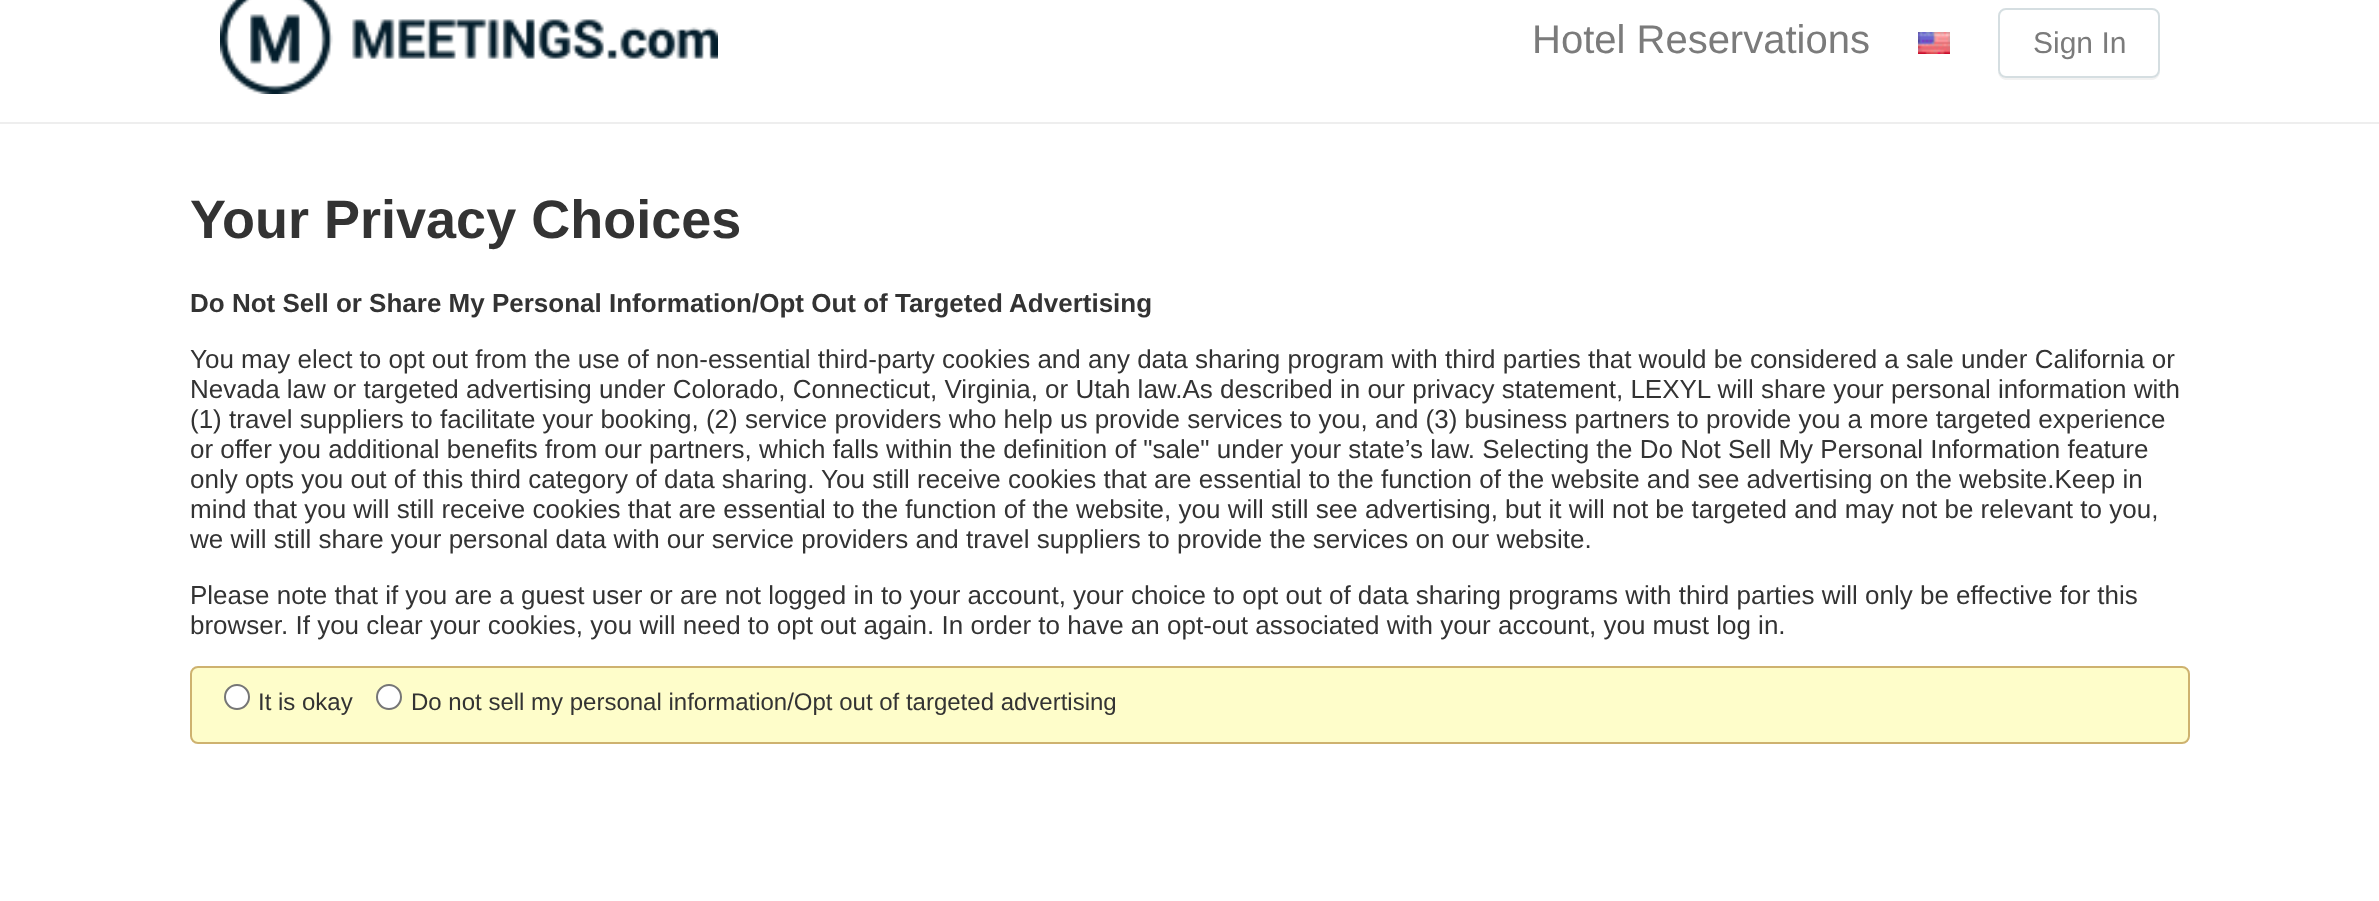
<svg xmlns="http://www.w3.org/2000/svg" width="2379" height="901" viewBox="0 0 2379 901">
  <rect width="100%" height="100%" fill="rgb(255,255,255)"/>
  <rect x="0" y="122" width="2379" height="2" fill="rgb(238,238,238)"/>
  <image x="220" y="0" width="498" height="94" href="pic1.png"/>
  <text x="1532" y="53" font-family="Liberation Sans" font-size="40" fill="rgb(123,123,123)">Hotel Reservations</text>
  <image x="1918" y="32" width="32" height="22" href="pic2.png"/>
  <path d="M1998 70V72C1998 76 2002 80 2006 80H2152C2156 80 2160 76 2160 72V70C2160 74 2156 78 2152 78H2006C2002 78 1998 74 1998 70Z" fill="rgb(242,242,242)"/>
  <rect x="1999" y="9" width="160" height="68" rx="7" fill="none" stroke="rgb(213,222,225)" stroke-width="2"/>
  <text x="2033" y="53" font-family="Liberation Sans" font-size="30" fill="rgb(123,123,123)">Sign In</text>
  <text x="190" y="238" font-family="Liberation Sans" font-size="54" font-weight="bold" fill="rgb(51,51,51)">Your Privacy Choices</text>
  <text x="190" y="312" font-family="Liberation Sans" font-size="26" font-weight="bold" fill="rgb(51,51,51)">Do Not Sell or Share My Personal Information/Opt Out of Targeted Advertising</text>
  <g font-family="Liberation Sans" font-size="26" fill="rgb(51,51,51)">
    <text>
      <tspan x="190" y="368">You may elect to opt out from the use of non-essential third-party cookies and any data sharing program with third parties that would be considered a sale under California or</tspan>
      <tspan x="190" y="398">Nevada law or targeted advertising under Colorado, Connecticut, Virginia, or Utah law.As described in our privacy statement, LEXYL will share your personal information with</tspan>
      <tspan x="190" y="428">(1) travel suppliers to facilitate your booking, (2) service providers who help us provide services to you, and (3) business partners to provide you a more targeted experience</tspan>
      <tspan x="190" y="458">or offer you additional benefits from our partners, which falls within the definition of "sale" under your state’s law. Selecting the Do Not Sell My Personal Information feature</tspan>
      <tspan x="190" y="488">only opts you out of this third category of data sharing. You still receive cookies that are essential to the function of the website and see advertising on the website.Keep in</tspan>
      <tspan x="190" y="518">mind that you will still receive cookies that are essential to the function of the website, you will still see advertising, but it will not be targeted and may not be relevant to you,</tspan>
      <tspan x="190" y="548">we will still share your personal data with our service providers and travel suppliers to provide the services on our website.</tspan>
    </text>
    <text>
      <tspan x="190" y="604">Please note that if you are a guest user or are not logged in to your account, your choice to opt out of data sharing programs with third parties will only be effective for this</tspan>
      <tspan x="190" y="634">browser. If you clear your cookies, you will need to opt out again. In order to have an opt-out associated with your account, you must log in.</tspan>
    </text>
  </g>
  <rect x="191" y="667" width="1998" height="76" rx="7" fill="rgb(254,253,202)" stroke="rgb(206,178,111)" stroke-width="2"/>
  <circle cx="237" cy="697" r="12" fill="rgb(255,255,255)" stroke="rgb(118,118,118)" stroke-width="2"/>
  <text x="258" y="710" font-family="Liberation Sans" font-size="24" fill="rgb(51,51,51)">It is okay</text>
  <circle cx="389" cy="697" r="12" fill="rgb(255,255,255)" stroke="rgb(118,118,118)" stroke-width="2"/>
  <text x="411" y="710" font-family="Liberation Sans" font-size="24" fill="rgb(51,51,51)">Do not sell my personal information/Opt out of targeted advertising</text>
</svg>
